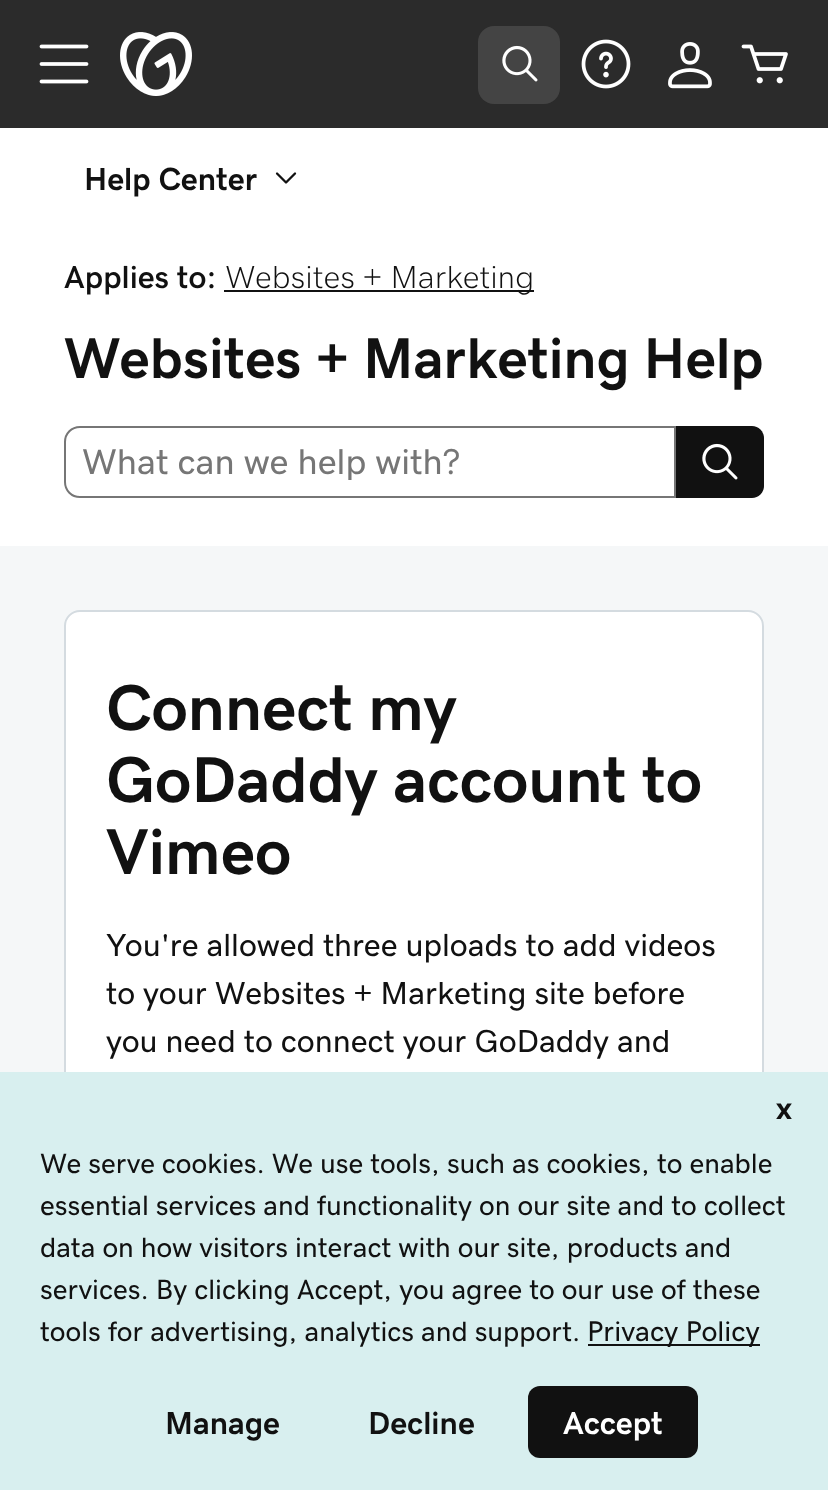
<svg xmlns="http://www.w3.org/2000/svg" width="828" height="1490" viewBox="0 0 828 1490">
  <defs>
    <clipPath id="clip1"><rect x="82" y="444" width="576" height="36"/></clipPath>
  </defs>
  <rect width="100%" height="100%" fill="rgb(255,255,255)"/>
  <rect x="0" y="0" width="828" height="128" fill="rgb(43,43,43)"/>
  <image x="39" y="44" width="50" height="40" href="pic1.png"/>
  <image x="120" y="32" width="72" height="64" href="pic2.png"/>
  <rect x="478" y="26" width="82" height="78" rx="16" fill="rgb(68,68,68)"/>
  <image x="502" y="45" width="36" height="37" href="pic3.png"/>
  <image x="581" y="39" width="50" height="50" href="pic4.png"/>
  <image x="668" y="42" width="44" height="47" href="pic5.png"/>
  <image x="741" y="44" width="47" height="40" href="pic6.png"/>
  <text x="84" y="190" font-family="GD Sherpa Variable" font-size="32" font-weight="bold" fill="rgb(17,17,17)">Help Center</text>
  <image x="275" y="172" width="22" height="12" href="pic7.png"/>
  <text x="64" y="288" font-family="GD Sherpa Variable" font-size="32" font-weight="600" fill="rgb(17,17,17)">Applies to:</text>
  <rect x="224" y="290" width="310" height="2" fill="rgb(17,17,17)"/>
  <text x="225" y="288" font-family="GD Sherpa Variable" font-size="32" font-weight="200" fill="rgb(17,17,17)">Websites + Marketing</text>
  <text x="64" y="378" font-family="GD Sherpa Variable" font-size="57.7" font-weight="bold" fill="rgb(17,17,17)">Websites + Marketing Help</text>
  <path d="M80 427H675V497H80C71.5 497 65 490.5 65 482V442C65 433.5 71.5 427 80 427Z" fill="none" stroke="rgb(118,118,118)" stroke-width="2"/>
  <g clip-path="url(#clip1)">
    <text x="82" y="474" font-family="GD Sherpa Variable" font-size="36" fill="rgb(118,118,118)">What can we help with?</text>
  </g>
  <path d="M676 426H752C758.5 426 764 431.5 764 438V486C764 492.5 758.5 498 752 498H676Z" fill="rgb(17,17,17)"/>
  <image x="702" y="443" width="36" height="37" href="pic8.png"/>
  <rect x="0" y="546" width="828" height="526" fill="rgb(245,247,248)"/>
  <rect x="65" y="611" width="698" height="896" rx="15" fill="rgb(255,255,255)" stroke="rgb(212,219,224)" stroke-width="2"/>
  <g font-family="GD Sherpa Variable" font-size="64.9" font-weight="800" fill="rgb(17,17,17)">
    <text>
      <tspan x="106" y="730">Connect my</tspan>
      <tspan x="106" y="802">GoDaddy account to</tspan>
      <tspan x="106" y="874">Vimeo</tspan>
    </text>
  </g>
  <g font-family="GD Sherpa Variable" font-size="32" fill="rgb(17,17,17)">
    <text>
      <tspan x="106" y="956">You're allowed three uploads to add videos</tspan>
      <tspan x="106" y="1004">to your Websites + Marketing site before</tspan>
      <tspan x="106" y="1052">you need to connect your GoDaddy and</tspan>
    </text>
  </g>
  <rect x="0" y="1072" width="828" height="418" fill="rgb(216,239,239)"/>
  <text x="776" y="1119" font-family="'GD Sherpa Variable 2'" font-size="32" font-weight="bold" fill="rgb(17,17,17)">x</text>
  <g font-family="GD Sherpa Variable" font-size="28" fill="rgb(17,17,17)">
    <text>
      <tspan x="40" y="1173">We serve cookies. We use tools, such as cookies, to enable</tspan>
      <tspan x="40" y="1215">essential services and functionality on our site and to collect</tspan>
      <tspan x="40" y="1257">data on how visitors interact with our site, products and</tspan>
      <tspan x="40" y="1299">services. By clicking Accept, you agree to our use of these</tspan>
      <tspan x="40" y="1341">tools for advertising, analytics and support.</tspan>
    </text>
  </g>
  <rect x="588" y="1344" width="172" height="2" fill="rgb(17,17,17)"/>
  <text x="587" y="1341" font-family="GD Sherpa Variable" font-size="28.5" fill="rgb(17,17,17)">Privacy Policy</text>
  <g font-family="'GD Sherpa Variable 2'" font-size="32" font-weight="bold" fill="rgb(17,17,17)">
    <text x="165" y="1434">Manage</text>
    <text x="368" y="1434">Decline</text>
  </g>
  <rect x="528" y="1386" width="170" height="72" rx="12" fill="rgb(17,17,17)"/>
  <text x="563" y="1434" font-family="'GD Sherpa Variable 2'" font-size="32" font-weight="bold" fill="rgb(255,255,255)">Accept</text>
</svg>
